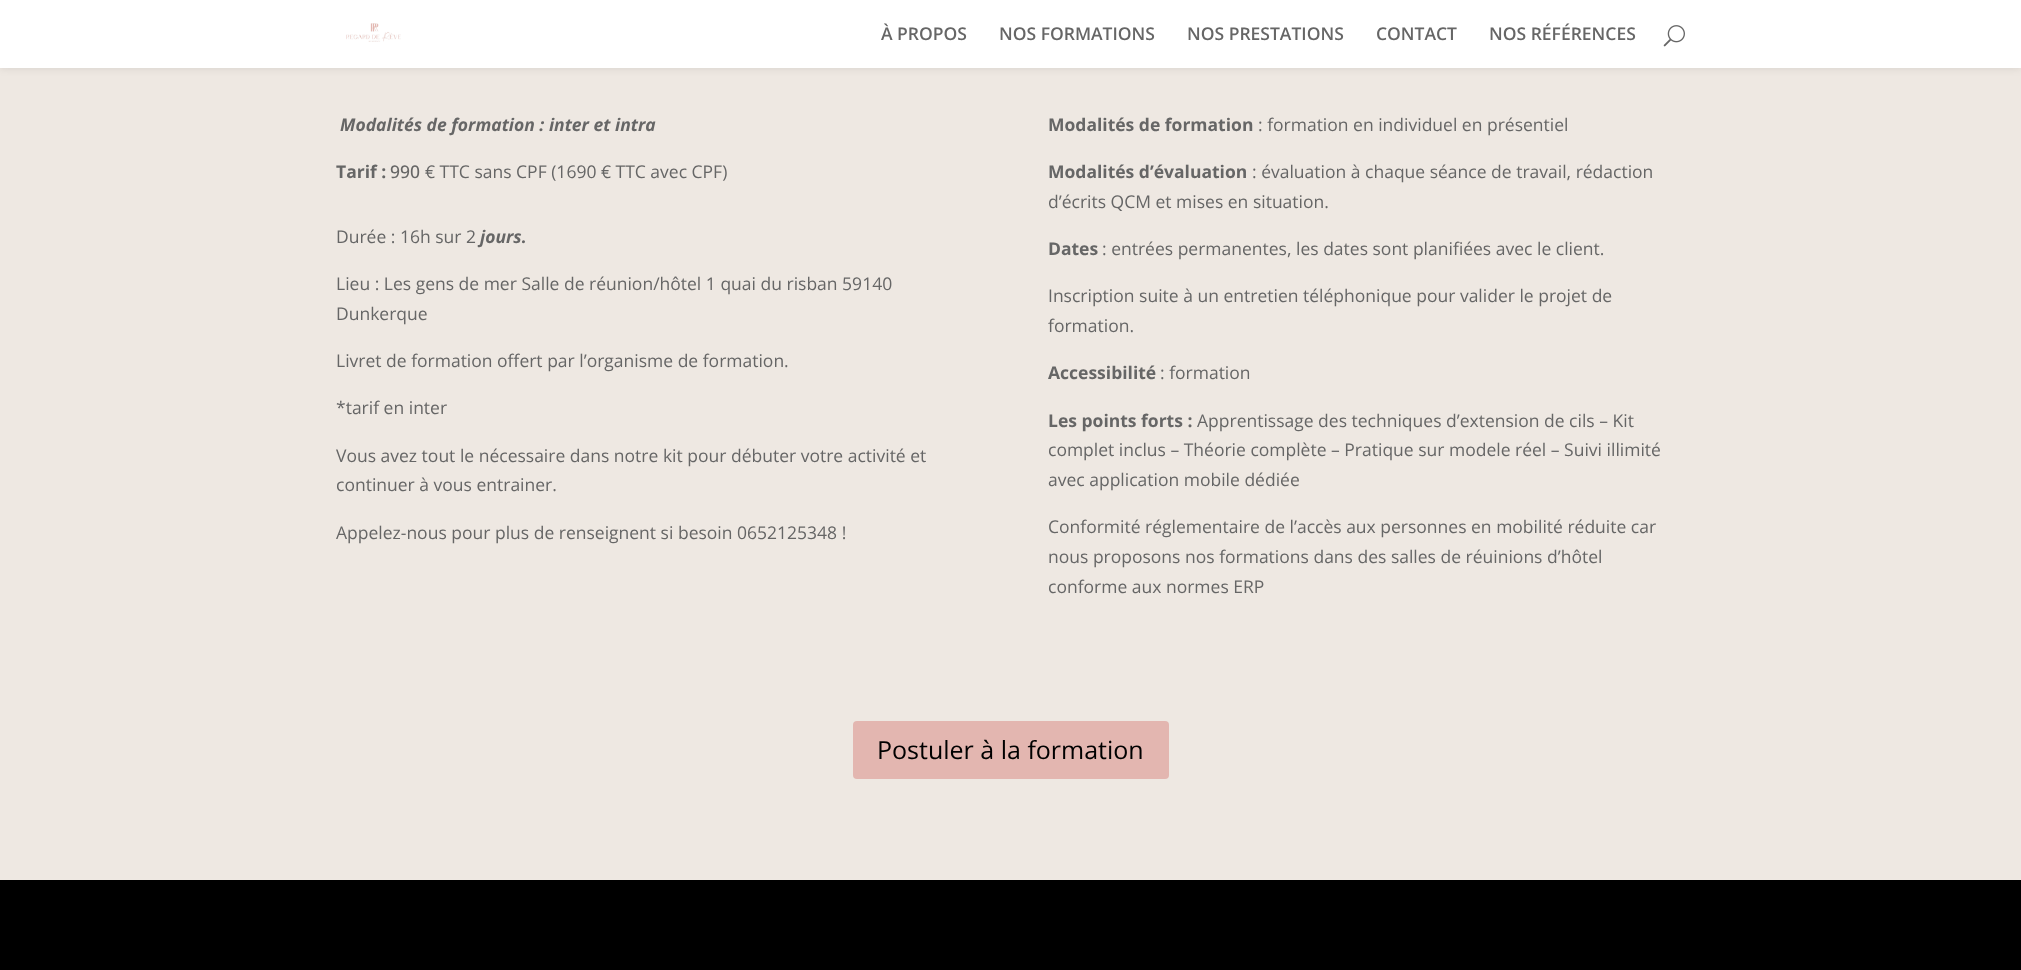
<svg xmlns="http://www.w3.org/2000/svg" width="2021" height="970" viewBox="0 0 2021 970">
  <rect width="100%" height="100%" fill="rgb(238,232,226)"/>
  <rect x="0" y="0" width="2021" height="68" fill="rgba(0,0,0,0.1)" filter="blur(4.5px)"/>
  <rect x="0" y="0" width="2021" height="68" fill="rgb(255,255,255)"/>
  <image x="346" y="23" width="55" height="19" href="pic1.png"/>
  <g font-family="Open Sans" font-size="17.5" font-weight="600" fill="rgb(102,102,102)">
    <text x="881" y="40">À PROPOS</text>
    <text x="999" y="40">NOS FORMATIONS</text>
    <text x="1187" y="40">NOS PRESTATIONS</text>
    <text x="1376" y="40">CONTACT</text>
    <text x="1489" y="40">NOS RÉFÉRENCES</text>
  </g>
  <image x="1663" y="25" width="22" height="22" href="pic2.png"/>
  <text x="340" y="131" font-family="Open Sans" font-size="17.5" font-weight="bold" font-style="italic" fill="rgb(102,102,102)">Modalités de formation : inter et intra</text>
  <text x="336" y="178" font-family="Open Sans" font-size="17.5" font-weight="bold" fill="rgb(102,102,102)">Tarif :</text>
  <text x="390" y="178" font-family="Open Sans" font-size="17.5" font-weight="500" fill="rgb(102,102,102)">990</text>
  <g font-family="Open Sans" font-size="17.5" fill="rgb(102,102,102)">
    <text x="425" y="178">€ TTC sans CPF (1690 € TTC avec CPF)</text>
    <text x="336" y="243">Durée : 16h sur 2</text>
  </g>
  <text x="480" y="243" font-family="Open Sans" font-size="17.5" font-weight="bold" font-style="italic" fill="rgb(102,102,102)">jours.</text>
  <g font-family="Open Sans" font-size="17.5" fill="rgb(102,102,102)">
    <text>
      <tspan x="336" y="290">Lieu : Les gens de mer Salle de réunion/hôtel 1 quai du risban 59140</tspan>
      <tspan x="336" y="320">Dunkerque</tspan>
    </text>
    <text x="336" y="367">Livret de formation offert par l’organisme de formation.</text>
    <text x="336" y="414">*tarif en inter</text>
    <text>
      <tspan x="336" y="462">Vous avez tout le nécessaire dans notre kit pour débuter votre activité et</tspan>
      <tspan x="336" y="491">continuer à vous entrainer.</tspan>
    </text>
    <text x="336" y="539">Appelez-nous pour plus de renseignent si besoin 0652125348 !</text>
  </g>
  <text x="1048" y="131" font-family="Open Sans" font-size="17.5" font-weight="bold" fill="rgb(102,102,102)">Modalités de formation</text>
  <text x="1258" y="131" font-family="Open Sans" font-size="17.5" fill="rgb(102,102,102)">: formation en individuel en présentiel</text>
  <text x="1048" y="178" font-family="Open Sans" font-size="17.5" font-weight="bold" fill="rgb(102,102,102)">Modalités d’évaluation</text>
  <g font-family="Open Sans" font-size="17.5" fill="rgb(102,102,102)">
    <text x="1252" y="178">: évaluation à chaque séance de travail, rédaction</text>
    <text x="1048" y="208">d’écrits QCM et mises en situation.</text>
  </g>
  <text x="1048" y="255" font-family="Open Sans" font-size="17.5" font-weight="bold" fill="rgb(102,102,102)">Dates</text>
  <g font-family="Open Sans" font-size="17.5" fill="rgb(102,102,102)">
    <text x="1102" y="255">: entrées permanentes, les dates sont planifiées avec le client.</text>
    <text>
      <tspan x="1048" y="302">Inscription suite à un entretien téléphonique pour valider le projet de</tspan>
      <tspan x="1048" y="332">formation.</tspan>
    </text>
  </g>
  <text x="1048" y="379" font-family="Open Sans" font-size="17.5" font-weight="bold" fill="rgb(102,102,102)">Accessibilité</text>
  <text x="1160" y="379" font-family="Open Sans" font-size="17.5" fill="rgb(102,102,102)">: formation</text>
  <text x="1048" y="427" font-family="Open Sans" font-size="17.5" font-weight="bold" fill="rgb(102,102,102)">Les points forts :</text>
  <g font-family="Open Sans" font-size="17.5" fill="rgb(102,102,102)">
    <text x="1197" y="427">Apprentissage des techniques d’extension de cils – Kit</text>
    <text>
      <tspan x="1048" y="456">complet inclus – Théorie complète – Pratique sur modele réel – Suivi illimité</tspan>
      <tspan x="1048" y="486">avec application mobile dédiée</tspan>
    </text>
    <text>
      <tspan x="1048" y="533">Conformité réglementaire de l’accès aux personnes en mobilité réduite car</tspan>
      <tspan x="1048" y="563">nous proposons nos formations dans des salles de réuinions d’hôtel</tspan>
      <tspan x="1048" y="593">conforme aux normes ERP</tspan>
    </text>
  </g>
  <rect x="853" y="721" width="316" height="58" rx="4" fill="rgb(227,182,176)"/>
  <text x="877" y="759" font-family="Open Sans" font-size="25" fill="rgb(0,0,0)">Postuler à la formation</text>
  <rect x="0" y="880" width="2021" height="90" fill="rgb(0,0,0)"/>
</svg>
